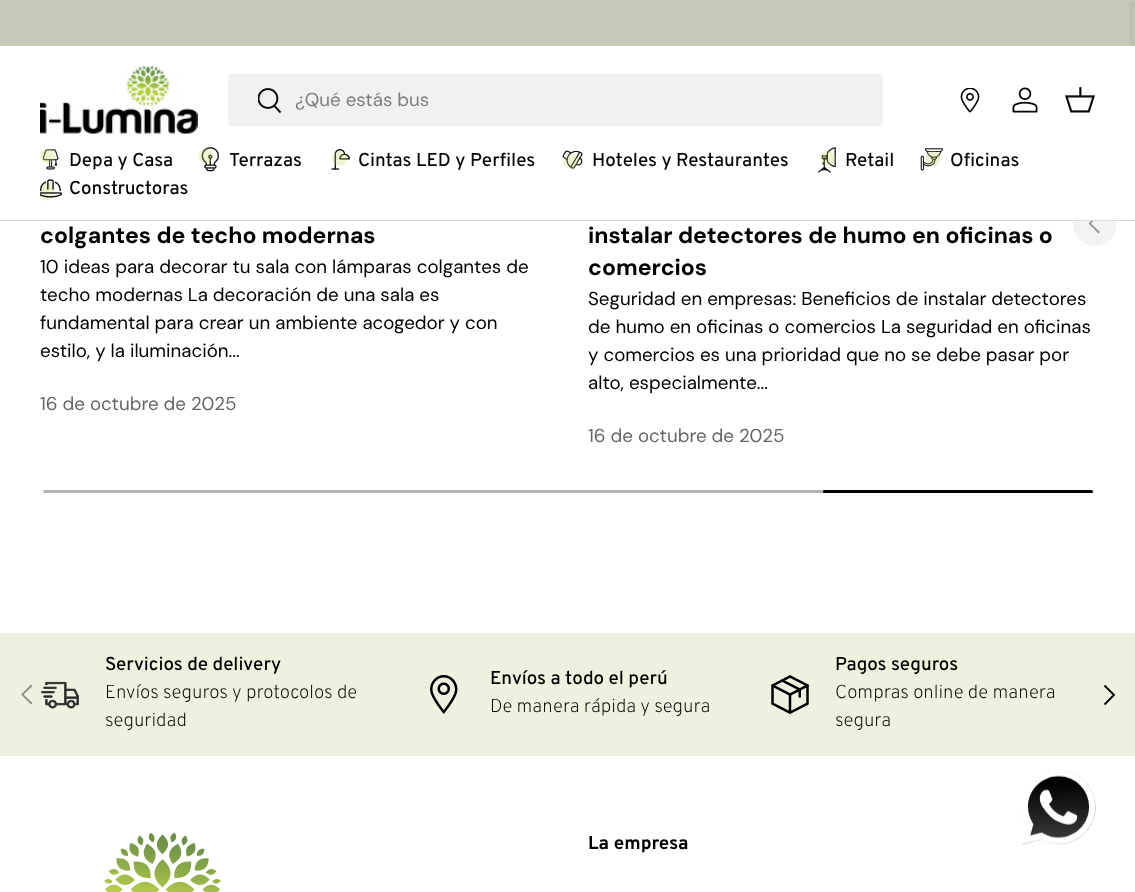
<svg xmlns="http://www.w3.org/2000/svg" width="1135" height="892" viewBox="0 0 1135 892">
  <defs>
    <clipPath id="clip1"><rect x="1070" y="199" width="50" height="50" rx="25"/></clipPath>
    <linearGradient id="g1" gradientUnits="userSpaceOnUse" x1="1071" y1="207" x2="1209" y2="241"><stop offset="0.6" stop-color="rgb(243,243,243)"/><stop offset="0.6" stop-color="rgb(255,255,255)"/><stop offset="1" stop-color="rgb(255,255,255)"/></linearGradient>
  </defs>
  <rect width="100%" height="100%" fill="rgb(255,255,255)"/>
  <rect x="0" y="0" width="1135" height="46" fill="rgb(201,201,185)"/>
  <image x="1129" y="1" width="6" height="45" href="pic1.png"/>
  <g clip-path="url(#clip1)">
    <rect x="1073" y="221" width="47" height="25" fill="url(#g1)"/>
  </g>
  <circle cx="1095" cy="224" r="23.5" fill="none" stroke="rgb(255,255,255)" stroke-width="3"/>
  <path d="M1088.5 223.5L1098.5 213L1100 214.5L1091 223.5L1100 232L1098.5 233.5Z" fill="rgb(153,153,153)"/>
  <rect x="1073" y="201" width="47" height="19" fill="rgb(255,255,255)"/>
  <rect x="0" y="220" width="1135" height="1" fill="rgb(218,218,218)"/>
  <image x="40" y="66" width="158" height="68" href="pic2.png"/>
  <rect x="228" y="74" width="655" height="52" rx="4" fill="rgb(241,241,243)"/>
  <image x="258" y="88" width="24" height="26" href="pic3.png"/>
  <text x="295" y="106" font-family="DM Sans" font-size="18.75" fill="rgb(124,124,125)">¿Qué estás bus</text>
  <image x="960" y="88" width="20" height="25" href="pic4.png"/>
  <image x="1012" y="87" width="26" height="26" href="pic5.png"/>
  <image x="1065" y="87" width="30" height="26" href="pic6.png"/>
  <image x="40" y="148" width="19" height="22" href="pic7.png"/>
  <text x="69" y="166" font-family="Overpass" font-size="18.75" font-weight="500" fill="rgb(7,7,7)">Depa y Casa</text>
  <image x="198" y="147" width="21" height="25" href="pic8.png"/>
  <text x="229" y="166" font-family="Overpass" font-size="18.75" font-weight="500" fill="rgb(7,7,7)">Terrazas</text>
  <image x="331" y="149" width="19" height="21" href="pic9.png"/>
  <text x="358" y="166" font-family="Overpass" font-size="18.75" font-weight="500" fill="rgb(7,7,7)">Cintas LED y Perfiles</text>
  <image x="562" y="150" width="21" height="19" href="pic10.png"/>
  <text x="592" y="166" font-family="Overpass" font-size="18.75" font-weight="500" fill="rgb(7,7,7)">Hoteles y Restaurantes</text>
  <image x="818" y="147" width="18" height="26" href="pic11.png"/>
  <text x="845" y="166" font-family="Overpass" font-size="18.75" font-weight="500" fill="rgb(7,7,7)">Retail</text>
  <image x="920" y="148" width="23" height="23" href="pic12.png"/>
  <text x="950" y="166" font-family="Overpass" font-size="18.75" font-weight="500" fill="rgb(7,7,7)">Oficinas</text>
  <image x="40" y="179" width="22" height="22" href="pic13.png"/>
  <text x="69" y="194" font-family="Overpass" font-size="18.75" font-weight="500" fill="rgb(7,7,7)">Constructoras</text>
  <text x="40" y="243" font-family="DM Sans" font-size="23" font-weight="bold" fill="rgb(0,0,0)">colgantes de techo modernas</text>
  <g font-family="DM Sans" font-size="18.75" fill="rgb(0,0,0)">
    <text>
      <tspan x="40" y="273">10 ideas para decorar tu sala con lámparas colgantes de</tspan>
      <tspan x="40" y="301">techo modernas La decoración de una sala es</tspan>
      <tspan x="40" y="329">fundamental para crear un ambiente acogedor y con</tspan>
      <tspan x="40" y="357">estilo, y la iluminación...</tspan>
    </text>
  </g>
  <text x="40" y="410" font-family="DM Sans" font-size="18.75" fill="rgb(102,102,102)">16 de octubre de 2025</text>
  <g font-family="DM Sans" font-size="23" font-weight="bold" fill="rgb(0,0,0)">
    <text>
      <tspan x="588" y="243">instalar detectores de humo en oficinas o</tspan>
      <tspan x="588" y="275">comercios</tspan>
    </text>
  </g>
  <g font-family="DM Sans" font-size="18.75" fill="rgb(0,0,0)">
    <text>
      <tspan x="588" y="305">Seguridad en empresas: Beneficios de instalar detectores</tspan>
      <tspan x="588" y="333">de humo en oficinas o comercios La seguridad en oficinas</tspan>
      <tspan x="588" y="361">y comercios es una prioridad que no se debe pasar por</tspan>
      <tspan x="588" y="389">alto, especialmente...</tspan>
    </text>
  </g>
  <text x="588" y="442" font-family="DM Sans" font-size="18.75" fill="rgb(102,102,102)">16 de octubre de 2025</text>
  <rect x="43" y="490" width="1050" height="3" rx="1.5" fill="rgb(179,179,179)"/>
  <rect x="823" y="490" width="270" height="3" rx="1.5" fill="rgb(0,0,0)"/>
  <rect x="0" y="633" width="1135" height="123" fill="rgb(240,240,222)"/>
  <image x="41" y="681" width="38" height="28" href="pic14.png"/>
  <text x="105" y="670" font-family="Overpass" font-size="18.75" font-weight="500" fill="rgb(0,0,0)">Servicios de delivery</text>
  <g font-family="Overpass" font-size="18.75" font-weight="200" fill="rgb(0,0,0)">
    <text>
      <tspan x="105" y="698">Envíos seguros y protocolos de</tspan>
      <tspan x="105" y="726">seguridad</tspan>
    </text>
  </g>
  <image x="430" y="675" width="28" height="39" href="pic15.png"/>
  <text x="490" y="684" font-family="Overpass" font-size="18.75" font-weight="500" fill="rgb(0,0,0)">Envíos a todo el perú</text>
  <text x="490" y="712" font-family="Overpass" font-size="18.75" font-weight="200" fill="rgb(0,0,0)">De manera rápida y segura</text>
  <image x="771" y="675" width="38" height="39" href="pic16.png"/>
  <text x="835" y="670" font-family="Overpass" font-size="18.75" font-weight="500" fill="rgb(0,0,0)">Pagos seguros</text>
  <g font-family="Overpass" font-size="18.75" font-weight="200" fill="rgb(0,0,0)">
    <text>
      <tspan x="835" y="698">Compras online de manera</tspan>
      <tspan x="835" y="726">segura</tspan>
    </text>
  </g>
  <path d="M21 694.5L31 684.5L32.5 686L23.5 694.5L32.5 703L31 704.5Z" fill="rgb(144,144,133)"/>
  <path d="M1104.5 685.5L1114 695L1104.5 704.5" fill="none" stroke="rgb(0,0,0)" stroke-width="1.9"/>
  <image x="104" y="832" width="117" height="60" href="pic17.png"/>
  <text x="588" y="849" font-family="Overpass" font-size="18.75" font-weight="bold" fill="rgb(0,0,0)">La empresa</text>
  <image x="1022" y="770" width="74" height="75" href="pic18.png"/>
</svg>
